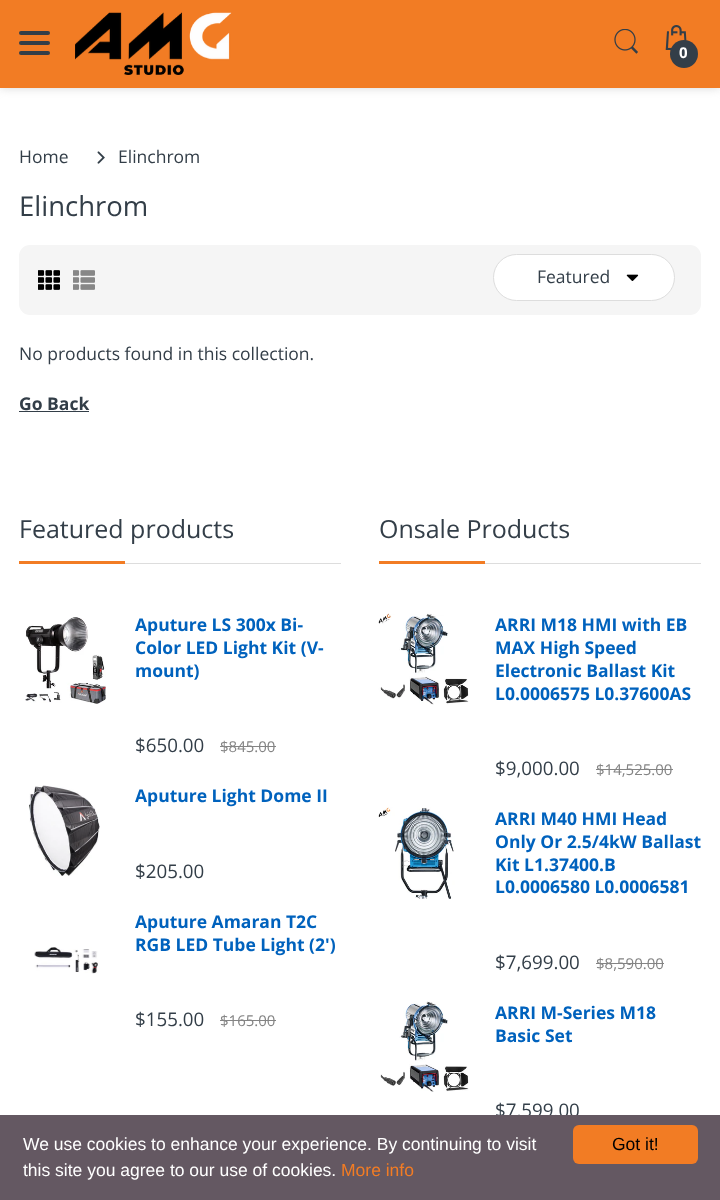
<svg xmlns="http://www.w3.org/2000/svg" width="720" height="1200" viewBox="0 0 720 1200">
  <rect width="100%" height="100%" fill="rgb(255,255,255)"/>
  <rect x="0" y="0" width="720" height="88" fill="rgba(201,201,201,0.75)" filter="blur(5px)"/>
  <rect x="0" y="0" width="720" height="88" fill="rgb(242,124,36)"/>
  <rect x="19" y="31" width="31" height="4" rx="2" fill="rgb(51,62,72)"/>
  <rect x="19" y="41" width="31" height="4" rx="2" fill="rgb(51,62,72)"/>
  <rect x="19" y="51" width="31" height="4" rx="2" fill="rgb(51,62,72)"/>
  <image x="75" y="12" width="157" height="63" href="pic1.png"/>
  <image x="614" y="29" width="24" height="25" href="pic2.png"/>
  <image x="665" y="25" width="22" height="25" href="pic3.png"/>
  <circle cx="684" cy="54" r="14" fill="rgb(51,62,72)"/>
  <text x="679" y="58" font-family="Open Sans" font-size="15" font-weight="bold" fill="rgb(255,255,255)">0</text>
  <text x="19" y="163" font-family="Open Sans" font-size="17.5" fill="rgb(51,62,72)">Home</text>
  <image x="97" y="151" width="8" height="13" href="pic4.png"/>
  <text x="118" y="163" font-family="Open Sans" font-size="17.5" fill="rgb(51,62,72)">Elinchrom</text>
  <text x="19" y="216" font-family="Open Sans" font-size="27.5" fill="rgb(51,62,72)">Elinchrom</text>
  <rect x="19" y="245" width="682" height="70" rx="11" fill="rgb(245,245,245)"/>
  <image x="38" y="270" width="22" height="20" href="pic5.png"/>
  <image x="73" y="270" width="22" height="20" href="pic6.png"/>
  <rect x="493.5" y="254.5" width="181" height="46" rx="23" fill="rgb(255,255,255)" stroke="rgb(221,221,221)"/>
  <text x="537" y="283" font-family="Open Sans" font-size="17.5" fill="rgb(51,62,72)">Featured</text>
  <image x="626" y="274" width="13" height="7" href="pic7.png"/>
  <text x="19" y="360" font-family="Open Sans" font-size="17.5" fill="rgb(51,62,72)">No products found in this collection.</text>
  <text x="19" y="410" font-family="Open Sans" font-size="17.5" font-weight="bold" fill="rgb(51,62,72)">Go Back</text>
  <rect x="19" y="411" width="70" height="1" fill="rgb(51,62,72)"/>
  <rect x="125" y="563" width="216" height="1" fill="rgb(221,221,221)"/>
  <text x="19" y="538" font-family="Open Sans" font-size="25" fill="rgb(51,62,72)">Featured products</text>
  <rect x="19" y="561" width="106" height="3" fill="rgb(242,124,36)"/>
  <image x="25" y="617" width="81" height="87" href="pic8.png"/>
  <g font-family="Open Sans" font-size="17.5" font-weight="bold" fill="rgb(0,98,189)">
    <text>
      <tspan x="135" y="631">Aputure LS 300x Bi-</tspan>
      <tspan x="135" y="654">Color LED Light Kit (V-</tspan>
      <tspan x="135" y="677">mount)</tspan>
    </text>
  </g>
  <text x="135" y="752" font-family="Open Sans" font-size="18.75" fill="rgb(51,62,72)">$650.00</text>
  <text x="220" y="752" font-family="Open Sans" font-size="15" fill="rgb(132,132,132)">$845.00</text>
  <rect x="220" y="746" width="56" height="1" fill="rgb(132,132,132)"/>
  <image x="29" y="785" width="71" height="91" href="pic9.png"/>
  <text x="135" y="802" font-family="Open Sans" font-size="17.5" font-weight="bold" fill="rgb(0,98,189)">Aputure Light Dome II</text>
  <text x="135" y="878" font-family="Open Sans" font-size="18.75" fill="rgb(51,62,72)">$205.00</text>
  <image x="34" y="947" width="64" height="27" href="pic10.png"/>
  <g font-family="Open Sans" font-size="17.5" font-weight="bold" fill="rgb(0,98,189)">
    <text>
      <tspan x="135" y="928">Aputure Amaran T2C</tspan>
      <tspan x="135" y="951">RGB LED Tube Light (2')</tspan>
    </text>
  </g>
  <text x="135" y="1026" font-family="Open Sans" font-size="18.75" fill="rgb(51,62,72)">$155.00</text>
  <text x="220" y="1026" font-family="Open Sans" font-size="15" fill="rgb(132,132,132)">$165.00</text>
  <rect x="220" y="1020" width="56" height="1" fill="rgb(132,132,132)"/>
  <rect x="485" y="563" width="216" height="1" fill="rgb(221,221,221)"/>
  <text x="379" y="538" font-family="Open Sans" font-size="25" fill="rgb(51,62,72)">Onsale Products</text>
  <rect x="379" y="561" width="106" height="3" fill="rgb(242,124,36)"/>
  <image x="378" y="613" width="91" height="92" href="pic11.png"/>
  <g font-family="Open Sans" font-size="17.5" font-weight="bold" fill="rgb(0,98,189)">
    <text>
      <tspan x="495" y="631">ARRI M18 HMI with EB</tspan>
      <tspan x="495" y="654">MAX High Speed</tspan>
      <tspan x="495" y="677">Electronic Ballast Kit</tspan>
      <tspan x="495" y="700">L0.0006575 L0.37600AS</tspan>
    </text>
  </g>
  <text x="495" y="775" font-family="Open Sans" font-size="18.75" fill="rgb(51,62,72)">$9,000.00</text>
  <text x="596" y="775" font-family="Open Sans" font-size="15" fill="rgb(132,132,132)">$14,525.00</text>
  <rect x="596" y="769" width="77" height="1" fill="rgb(132,132,132)"/>
  <image x="378" y="807" width="77" height="92" href="pic12.png"/>
  <g font-family="Open Sans" font-size="17.5" font-weight="bold" fill="rgb(0,98,189)">
    <text>
      <tspan x="495" y="825">ARRI M40 HMI Head</tspan>
      <tspan x="495" y="848">Only Or 2.5/4kW Ballast</tspan>
      <tspan x="495" y="871">Kit L1.37400.B</tspan>
      <tspan x="495" y="893">L0.0006580 L0.0006581</tspan>
    </text>
  </g>
  <text x="495" y="969" font-family="Open Sans" font-size="18.75" fill="rgb(51,62,72)">$7,699.00</text>
  <text x="596" y="969" font-family="Open Sans" font-size="15" fill="rgb(132,132,132)">$8,590.00</text>
  <rect x="596" y="963" width="68" height="1" fill="rgb(132,132,132)"/>
  <image x="380" y="1001" width="89" height="91" href="pic13.png"/>
  <g font-family="Open Sans" font-size="17.5" font-weight="bold" fill="rgb(0,98,189)">
    <text>
      <tspan x="495" y="1019">ARRI M-Series M18</tspan>
      <tspan x="495" y="1042">Basic Set</tspan>
    </text>
  </g>
  <text x="495" y="1117" font-family="Open Sans" font-size="18.75" fill="rgb(51,62,72)">$7,599.00</text>
  <rect x="0" y="1115" width="720" height="85" fill="rgb(100,88,98)"/>
  <g font-family="Liberation Sans" font-size="17.5" fill="rgb(255,255,255)">
    <text>
      <tspan x="23" y="1150">We use cookies to enhance your experience. By continuing to visit</tspan>
      <tspan x="23" y="1176">this site you agree to our use of cookies.</tspan>
    </text>
  </g>
  <text x="341" y="1176" font-family="Liberation Sans" font-size="17.5" fill="rgb(242,124,36)">More info</text>
  <rect x="573" y="1125" width="125" height="39" rx="6" fill="rgb(242,124,36)"/>
  <text x="612" y="1150" font-family="Liberation Sans" font-size="17.5" fill="rgb(0,0,0)">Got it!</text>
</svg>
